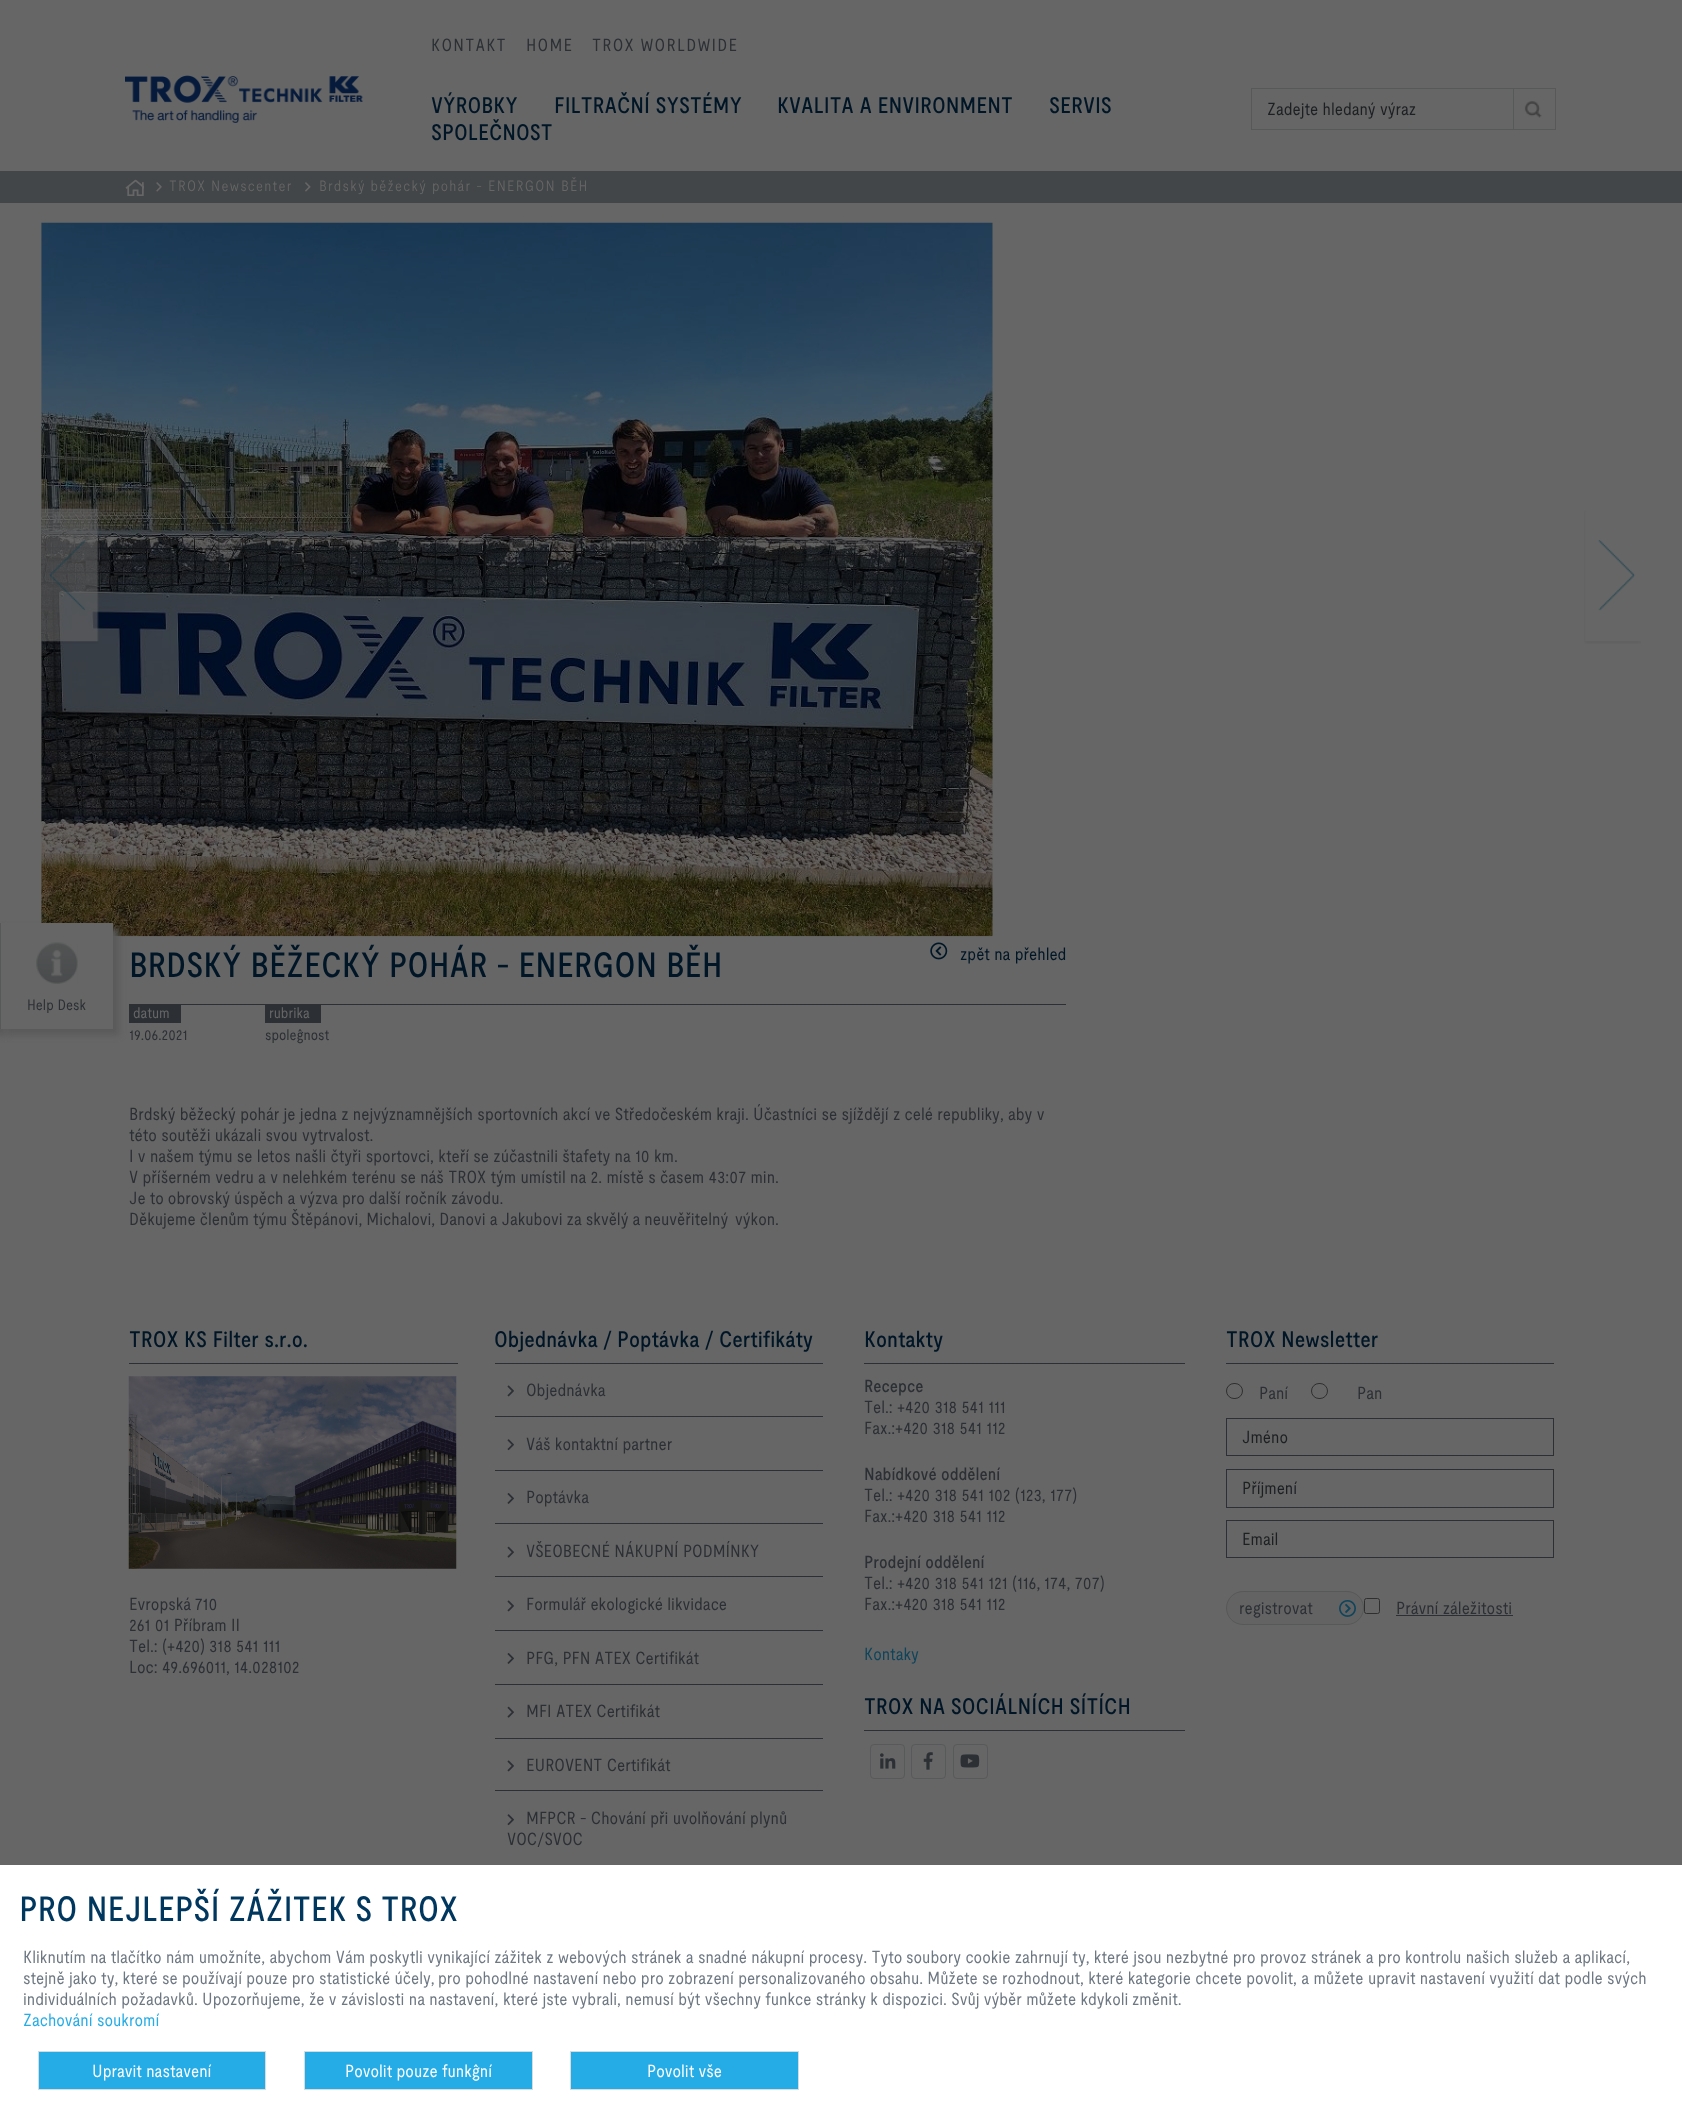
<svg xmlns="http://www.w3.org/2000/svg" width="1682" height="2114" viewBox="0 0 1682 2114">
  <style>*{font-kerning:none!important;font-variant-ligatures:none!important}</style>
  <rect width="100%" height="100%" fill="rgb(102,102,102)"/>
  <g font-family="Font" font-size="17.5" letter-spacing="1.25" fill="rgb(44,48,52)">
    <text x="431" y="51">KONTAKT</text>
    <text x="526" y="51">HOME</text>
    <text x="592" y="51">TROX WORLDWIDE</text>
  </g>
  <image x="125" y="75" width="238" height="48" href="pic1.png"/>
  <g font-family="Font" font-size="22.5" font-weight="500" fill="rgb(0,22,38)">
    <text x="431" y="113">VÝROBKY</text>
    <text x="554" y="113">FILTRAČNÍ SYSTÉMY</text>
    <text x="777" y="113">KVALITA A ENVIRONMENT</text>
    <text x="1049" y="113">SERVIS</text>
    <text x="431" y="140">SPOLEČNOST</text>
  </g>
  <rect x="1251.5" y="88.5" width="262" height="41" fill="none" stroke="rgb(87,88,88)"/>
  <text x="1267" y="115" font-family="Font" font-size="17.5" fill="rgb(29,32,35)">Zadejte hledaný výraz</text>
  <image x="1524" y="101" width="18" height="17" href="pic2.png"/>
  <rect x="1514" y="88" width="42" height="1" fill="rgb(87,88,88)"/>
  <rect x="1555" y="88" width="1" height="42" fill="rgb(87,88,88)"/>
  <rect x="1514" y="129" width="42" height="1" fill="rgb(87,88,88)"/>
  <rect x="0" y="171" width="1682" height="32" fill="rgb(67,70,72)"/>
  <image x="125" y="179" width="19" height="17" href="pic3.png"/>
  <image x="156" y="182" width="6" height="10" href="pic4.png"/>
  <text x="169" y="191" font-family="Font" font-size="15" font-weight="300" letter-spacing="1.25" fill="rgb(102,102,102)">TROX Newscenter</text>
  <image x="305" y="182" width="6" height="10" href="pic5.png"/>
  <text x="319" y="191" font-family="Font" font-size="15" font-weight="300" letter-spacing="1.25" fill="rgb(102,102,102)">Brdský běžecký pohár - ENERGON BĚH</text>
  <image x="41" y="222" width="952" height="715" href="pic6.png"/>
  <image x="41" y="508" width="58" height="136" href="pic7.png"/>
  <image x="1584" y="511" width="57" height="133" href="pic8.png"/>
  <rect x="-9" y="929" width="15" height="106" fill="rgb(90,90,90)" filter="blur(3px)"/>
  <rect x="6" y="929" width="113" height="106" fill="rgb(90,90,90)" filter="blur(3px)"/>
  <rect x="1" y="923" width="112" height="106" fill="rgb(102,102,102)"/>
  <image x="36" y="942" width="42" height="42" href="pic9.png"/>
  <rect x="0" y="923" width="1" height="106" fill="rgb(87,88,88)"/>
  <text x="27" y="1010" font-family="Font" font-size="15" fill="rgb(44,48,52)">Help Desk</text>
  <text x="129" y="977" word-spacing="0.25" font-family="Font" font-size="35" font-weight="500" fill="rgb(0,22,38)">BRDSKÝ BĚŽECKÝ POHÁR - ENERGON BĚH</text>
  <image x="930" y="942" width="18" height="18" href="pic10.png"/>
  <text x="960" y="960" font-family="Font" font-size="17.5" fill="rgb(0,22,38)">zpět na přehled</text>
  <rect x="129" y="1004" width="937" height="1" fill="rgb(44,48,52)"/>
  <rect x="129" y="1005" width="52" height="18" fill="rgb(44,48,52)"/>
  <text x="133" y="1018" font-family="Font" font-size="15" fill="rgb(102,102,102)">datum</text>
  <text x="129" y="1040" font-family="Font" font-size="15" fill="rgb(44,48,52)">19.06.2021</text>
  <rect x="265" y="1005" width="56" height="18" fill="rgb(44,48,52)"/>
  <text x="269" y="1018" font-family="Font" font-size="15" fill="rgb(102,102,102)">rubrika</text>
  <text x="265" y="1040" font-family="Font" font-size="15" fill="rgb(44,48,52)">spoleĝnost</text>
  <g font-family="Font" font-size="17.5" fill="rgb(44,48,52)">
    <text x="129" y="1120">Brdský běžecký pohár je jedna z nejvýznamnějších sportovních akcí ve Středočeském kraji. Účastníci se sjíždějí z celé republiky,</text>
    <text x="1008" y="1120">aby v</text>
    <text>
      <tspan x="129" y="1141">této soutěži ukázali svou vytrvalost.</tspan>
      <tspan x="129" y="1162">I v našem týmu se letos našli čtyři sportovci, kteří se zúčastnili štafety na 10 km.</tspan>
      <tspan x="129" y="1183">V příšerném vedru a v nelehkém terénu se náš TROX tým umístil na 2. místě s časem 43:07 min.</tspan>
      <tspan x="129" y="1204" word-spacing="-0.25">Je to obrovský úspěch a výzva pro další ročník závodu.</tspan>
      <tspan x="129" y="1225" word-spacing="-0.25">Děkujeme členům týmu Štěpánovi, Michalovi, Danovi a Jakubovi za skvělý a neuvěřitelný</tspan>
    </text>
    <text x="735" y="1225" word-spacing="-0.25">výkon.</text>
  </g>
  <rect x="129" y="1363" width="329" height="1" fill="rgb(44,48,52)"/>
  <text x="129" y="1347" font-family="Font" font-size="22.5" font-weight="500" fill="rgb(0,22,38)">TROX KS Filter s.r.o.</text>
  <image x="128" y="1376" width="329" height="193" href="pic11.png"/>
  <g font-family="Font" font-size="17.5" fill="rgb(44,48,52)">
    <text>
      <tspan x="129" y="1610" word-spacing="-1">Evropská 710</tspan>
      <tspan x="129" y="1631">261 01 Příbram II</tspan>
      <tspan x="129" y="1652">Tel.: (+420)</tspan>
    </text>
    <text x="209" y="1652">318 541 111</text>
    <text x="129" y="1673">Loc: 49.696011,</text>
    <text x="234" y="1673">14.028102</text>
  </g>
  <rect x="495" y="1363" width="328" height="1" fill="rgb(44,48,52)"/>
  <text x="494" y="1347" word-spacing="-0.5" font-family="Font" font-size="22.5" font-weight="500" fill="rgb(0,22,38)">Objednávka / Poptávka / Certifikáty</text>
  <rect x="495" y="1416" width="328" height="1" fill="rgb(44,48,52)"/>
  <image x="507" y="1385" width="7" height="12" href="pic12.png"/>
  <text x="526" y="1396" font-family="Font" font-size="17.5" fill="rgb(44,48,52)">Objednávka</text>
  <rect x="495" y="1470" width="328" height="1" fill="rgb(44,48,52)"/>
  <image x="507" y="1439" width="7" height="12" href="pic13.png"/>
  <text x="526" y="1450" font-family="Font" font-size="17.5" fill="rgb(44,48,52)">Váš kontaktní partner</text>
  <rect x="495" y="1523" width="328" height="1" fill="rgb(44,48,52)"/>
  <image x="507" y="1493" width="7" height="11" href="pic14.png"/>
  <text x="526" y="1503" font-family="Font" font-size="17.5" fill="rgb(44,48,52)">Poptávka</text>
  <rect x="495" y="1576" width="328" height="1" fill="rgb(44,48,52)"/>
  <image x="507" y="1546" width="7" height="12" href="pic15.png"/>
  <text x="526" y="1557" font-family="Font" font-size="17.5" fill="rgb(44,48,52)">VŠEOBECNÉ NÁKUPNÍ PODMÍNKY</text>
  <rect x="495" y="1630" width="328" height="1" fill="rgb(44,48,52)"/>
  <image x="507" y="1600" width="7" height="12" href="pic12.png"/>
  <text x="526" y="1610" font-family="Font" font-size="17.5" fill="rgb(44,48,52)">Formulář ekologické likvidace</text>
  <rect x="495" y="1684" width="328" height="1" fill="rgb(44,48,52)"/>
  <image x="507" y="1653" width="7" height="11" href="pic14.png"/>
  <text x="526" y="1664" font-family="Font" font-size="17.5" fill="rgb(44,48,52)">PFG, PFN ATEX Certifikát</text>
  <rect x="495" y="1738" width="328" height="1" fill="rgb(44,48,52)"/>
  <image x="507" y="1706" width="7" height="12" href="pic15.png"/>
  <text x="526" y="1717" font-family="Font" font-size="17.5" fill="rgb(44,48,52)">MFI ATEX Certifikát</text>
  <rect x="495" y="1790" width="328" height="1" fill="rgb(44,48,52)"/>
  <image x="507" y="1760" width="7" height="12" href="pic12.png"/>
  <text x="526" y="1771" font-family="Font" font-size="17.5" fill="rgb(44,48,52)">EUROVENT Certifikát</text>
  <image x="507" y="1814" width="7" height="12" href="pic13.png"/>
  <g font-family="Font" font-size="17.5" fill="rgb(44,48,52)">
    <text x="526" y="1824">MFPCR - Chování při uvolňování plynů</text>
    <text x="507" y="1845">VOC/SVOC</text>
  </g>
  <rect x="864" y="1363" width="321" height="1" fill="rgb(44,48,52)"/>
  <text x="864" y="1347" font-family="Font" font-size="22.5" font-weight="500" fill="rgb(0,22,38)">Kontakty</text>
  <text x="864" y="1392" font-family="Font" font-size="17.5" font-weight="500" fill="rgb(44,48,52)">Recepce</text>
  <g font-family="Font" font-size="17.5" fill="rgb(44,48,52)">
    <text>
      <tspan x="864" y="1413">Tel.: +420 318 541 111</tspan>
      <tspan x="864" y="1434">Fax.:+420 318 541 112</tspan>
    </text>
  </g>
  <text x="864" y="1480" font-family="Font" font-size="17.5" font-weight="500" fill="rgb(44,48,52)">Nabídkové oddělení</text>
  <g font-family="Font" font-size="17.5" fill="rgb(44,48,52)">
    <text x="864" y="1501">Tel.: +420 318 541 102 (123,</text>
    <text x="1050" y="1501">177)</text>
    <text x="864" y="1522">Fax.:+420 318 541 112</text>
  </g>
  <text x="864" y="1568" font-family="Font" font-size="17.5" font-weight="500" fill="rgb(44,48,52)">Prodejní oddělení</text>
  <g font-family="Font" font-size="17.5" fill="rgb(44,48,52)">
    <text x="864" y="1589">Tel.: +420 318 541 121 (116,</text>
    <text x="1044" y="1589">174, 707)</text>
    <text x="864" y="1610">Fax.:+420 318 541 112</text>
  </g>
  <text x="864" y="1660" font-family="Font" font-size="17.5" fill="rgb(15,69,92)">Kontaky</text>
  <rect x="864" y="1730" width="321" height="1" fill="rgb(44,48,52)"/>
  <text x="864" y="1714" font-family="Font" font-size="22.5" font-weight="500" fill="rgb(0,22,38)">TROX NA SOCIÁLNÍCH SÍTÍCH</text>
  <rect x="870.5" y="1744.5" width="34" height="34" rx="3.5" fill="none" stroke="rgb(88,89,90)"/>
  <image x="880" y="1753" width="16" height="16" href="pic16.png"/>
  <rect x="911.5" y="1744.5" width="34" height="34" rx="3.5" fill="none" stroke="rgb(88,89,90)"/>
  <image x="923" y="1752" width="10" height="18" href="pic17.png"/>
  <rect x="953.5" y="1744.5" width="34" height="34" rx="3.5" fill="none" stroke="rgb(88,89,90)"/>
  <image x="960" y="1754" width="20" height="14" href="pic18.png"/>
  <rect x="1226" y="1363" width="328" height="1" fill="rgb(44,48,52)"/>
  <text x="1226" y="1347" font-family="Font" font-size="22.5" font-weight="500" fill="rgb(0,22,38)">TROX Newsletter</text>
  <rect x="1226.5" y="1383.5" width="16" height="15" rx="7.5" fill="none" stroke="rgb(47,47,47)"/>
  <text x="1259" y="1399" font-family="Font" font-size="17.5" fill="rgb(44,48,52)">Paní</text>
  <rect x="1311.5" y="1383.5" width="16" height="15" rx="7.5" fill="none" stroke="rgb(47,47,47)"/>
  <text x="1357" y="1399" font-family="Font" font-size="17.5" fill="rgb(44,48,52)">Pan</text>
  <rect x="1226.5" y="1418.5" width="327" height="37" fill="none" stroke="rgb(44,48,52)"/>
  <text x="1242" y="1443" font-family="Font" font-size="17.5" fill="rgb(29,32,35)">Jméno</text>
  <rect x="1226.5" y="1469.5" width="327" height="38" fill="none" stroke="rgb(44,48,52)"/>
  <text x="1242" y="1494" font-family="Font" font-size="17.5" fill="rgb(29,32,35)">Příjmení</text>
  <rect x="1226.5" y="1520.5" width="327" height="37" fill="none" stroke="rgb(44,48,52)"/>
  <text x="1242" y="1545" font-family="Font" font-size="17.5" fill="rgb(29,32,35)">Email</text>
  <rect x="1226.5" y="1591.5" width="137" height="33" rx="16.5" fill="rgb(99,99,99)" stroke="rgb(87,88,88)"/>
  <text x="1239" y="1614" font-family="Font" font-size="17.5" fill="rgb(44,48,52)">registrovat</text>
  <image x="1339" y="1600" width="17" height="17" href="pic19.png"/>
  <rect x="1364.5" y="1598.5" width="15" height="15" rx="2" fill="none" stroke="rgb(47,47,47)"/>
  <text x="1396" y="1614" font-family="Font" font-size="17.5" fill="rgb(44,48,52)">Právní záležitosti</text>
  <rect x="1396" y="1615" width="117" height="1" fill="rgb(44,48,52)"/>
  <rect x="0" y="1865" width="1682" height="249" fill="rgb(255,255,255)"/>
  <text x="19" y="1921" font-family="Font" font-size="35" font-weight="500" fill="rgb(0,55,95)">PRO NEJLEPŠÍ ZÁŽITEK S TROX</text>
  <g font-family="Font" font-size="17.5" fill="rgb(110,120,131)">
    <text x="23" y="1963">Kliknutím na tlačítko nám umožníte, abychom Vám poskytli vynikající zážitek z webových stránek a snadné nákupní procesy. Tyto</text>
    <text x="906" y="1963">soubory cookie zahrnují ty, které jsou nezbytné pro provoz stránek a pro</text>
    <text x="1405" y="1963">kontrolu našich služeb a aplikací,</text>
    <text x="23" y="1984">stejně jako ty, které se používají pouze pro statistické účely,</text>
    <text x="438" y="1984">pro pohodlné nastavení nebo pro zobrazení personalizovaného obsahu. Můžete</text>
    <text x="982" y="1984">se rozhodnout, které kategorie chcete povolit, a můžete</text>
    <text x="1368" y="1984">upravit nastavení využití dat podle svých</text>
    <text x="23" y="2005">individuálních požadavků. Upozorňujeme, že v závislosti na nastavení,</text>
    <text x="503" y="2005">které jste vybrali, nemusí být všechny funkce stránky k dispozici. Svůj výběr můžete kdykoli</text>
    <text x="1132" y="2005">změnit.</text>
  </g>
  <text x="23" y="2026" font-family="Font" font-size="17.5" fill="rgb(37,172,231)">Zachování soukromí</text>
  <rect x="38.5" y="2051.5" width="227" height="38" fill="rgb(37,172,231)" stroke="rgb(217,220,221)"/>
  <text x="92" y="2077" font-family="Font" font-size="17.5" fill="rgb(255,255,255)">Upravit nastavení</text>
  <rect x="304.5" y="2051.5" width="228" height="38" fill="rgb(37,172,231)" stroke="rgb(217,220,221)"/>
  <text x="345" y="2077" font-family="Font" font-size="17.5" fill="rgb(255,255,255)">Povolit pouze funkĝní</text>
  <rect x="570.5" y="2051.5" width="228" height="38" fill="rgb(37,172,231)" stroke="rgb(217,220,221)"/>
  <text x="647" y="2077" font-family="Font" font-size="17.5" fill="rgb(255,255,255)">Povolit vše</text>
</svg>
